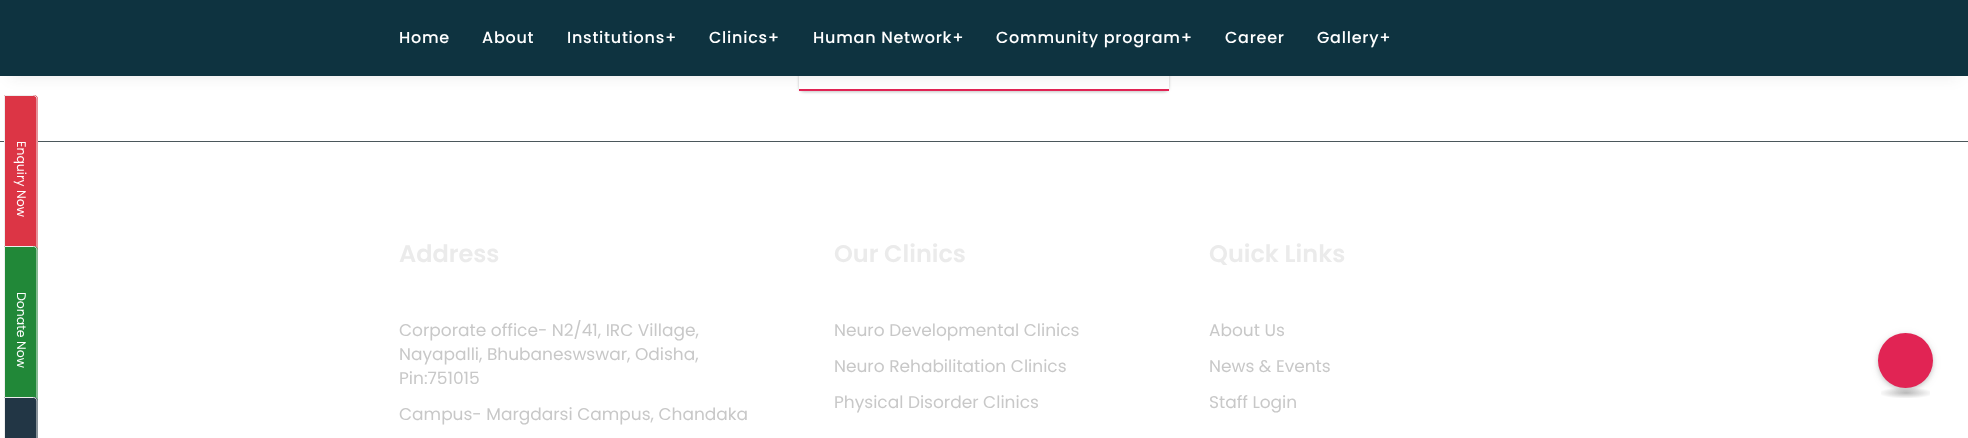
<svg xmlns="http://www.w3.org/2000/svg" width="1968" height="438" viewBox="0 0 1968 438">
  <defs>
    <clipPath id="clip1"><path d="M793 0H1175V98H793ZM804-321H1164C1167-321 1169-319 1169-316V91H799V-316C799-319 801-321 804-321Z" clip-rule="evenodd"/></clipPath>
    <radialGradient id="g1" gradientUnits="userSpaceOnUse" cx="0" cy="0" r="1" gradientTransform="matrix(35 0 0 7.1 1906 393)"><stop offset="0" stop-color="rgb(0,0,0)" stop-opacity="0.25"/><stop offset="0.8" stop-color="rgb(0,0,0)" stop-opacity="0"/></radialGradient>
  </defs>
  <rect width="100%" height="100%" fill="rgb(255,255,255)"/>
  <g clip-path="url(#clip1)">
    <rect x="799" y="-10" width="370" height="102" rx="5" fill="rgba(0,0,0,0.24)" filter="blur(1.5px)"/>
  </g>
  <rect x="799" y="89" width="370" height="2" fill="rgb(225,36,84)"/>
  <rect x="10" y="20" width="1948" height="56" fill="rgba(25,25,25,0.1)" filter="blur(7.5px)"/>
  <rect x="0" y="0" width="1968" height="76" fill="rgb(14,51,64)"/>
  <g font-family="Poppins" font-size="16" font-weight="500" letter-spacing="0.75" fill="rgb(255,255,255)">
    <text x="399" y="43">Home</text>
    <text x="482" y="43">About</text>
    <text x="567" y="43">Institutions+</text>
    <text x="709" y="43">Clinics+</text>
    <text x="813" y="43">Human Network+</text>
    <text x="996" y="43">Community program+</text>
    <text x="1225" y="43">Career</text>
    <text x="1317" y="43">Gallery+</text>
  </g>
  <rect x="0" y="141" width="1968" height="1" fill="rgb(75,87,91)"/>
  <path d="M38 99V259C38 261 36 263 34 263H4V95H34C36 95 38 97 38 99Z" fill="rgb(220,53,69)"/>
  <path d="M37 99V258.5C37 260.5 35.5 262 33.5 262H4.5V95.5H33.5C35.5 95.5 37 97.5 37 99Z" fill="none" stroke="rgb(238,238,238)"/>
  <text x="17" y="141" transform="rotate(90 17 141)" font-family="Poppins" font-size="12.5" fill="rgb(255,255,255)">Enquiry Now</text>
  <path d="M38 250V409C38 412 36 413 34 413H4V246H34C36 246 38 248 38 250Z" fill="rgb(33,136,56)"/>
  <path d="M37 250V409.5C37 411.5 35.5 413 33.5 413H4.5V246.5H33.5C35.5 246.5 37 248 37 250Z" fill="none" stroke="rgb(238,238,238)"/>
  <text x="17" y="292" transform="rotate(90 17 292)" font-family="Poppins" font-size="12.5" fill="rgb(255,255,255)">Donate Now</text>
  <path d="M38 401V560C38 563 36 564 34 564H4V397H34C36 397 38 399 38 401Z" fill="rgb(34,54,69)"/>
  <path d="M37 401V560.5C37 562.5 35.5 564 33.5 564H4.5V397.5H33.5C35.5 397.5 37 399 37 401Z" fill="none" stroke="rgb(238,238,238)"/>
  <text x="399" y="262" font-family="Poppins" font-size="24" font-weight="600" fill="rgb(235,235,235)">Address</text>
  <g font-family="Poppins" font-size="17" fill="rgb(200,200,200)">
    <text>
      <tspan x="399" y="336">Corporate office- N2/41, IRC Village,</tspan>
      <tspan x="399" y="360">Nayapalli, Bhubaneswswar, Odisha,</tspan>
      <tspan x="399" y="384">Pin:751015</tspan>
    </text>
    <text x="399" y="420">Campus- Margdarsi Campus, Chandaka</text>
  </g>
  <text x="834" y="262" font-family="Poppins" font-size="24" font-weight="600" fill="rgb(235,235,235)">Our Clinics</text>
  <g font-family="Poppins" font-size="17" fill="rgb(200,200,200)">
    <text x="834" y="336">Neuro Developmental Clinics</text>
    <text x="834" y="372">Neuro Rehabilitation Clinics</text>
    <text x="834" y="408">Physical Disorder Clinics</text>
  </g>
  <text x="1209" y="262" font-family="Poppins" font-size="24" font-weight="600" fill="rgb(235,235,235)">Quick Links</text>
  <g font-family="Poppins" font-size="17" fill="rgb(200,200,200)">
    <text x="1209" y="336">About Us</text>
    <text x="1209" y="372">News &amp; Events</text>
    <text x="1209" y="408">Staff Login</text>
  </g>
  <rect x="1878" y="335" width="55" height="55" rx="27.5" fill="rgba(0,0,0,0.1)" filter="blur(4px)"/>
  <rect x="1878" y="335" width="55" height="55" rx="27.5" fill="rgba(0,0,0,0.14)" filter="blur(2px)"/>
  <circle cx="1905.5" cy="360.5" r="27.5" fill="rgb(225,36,84)"/>
  <rect x="1881" y="388" width="49" height="10" fill="url(#g1)"/>
</svg>
